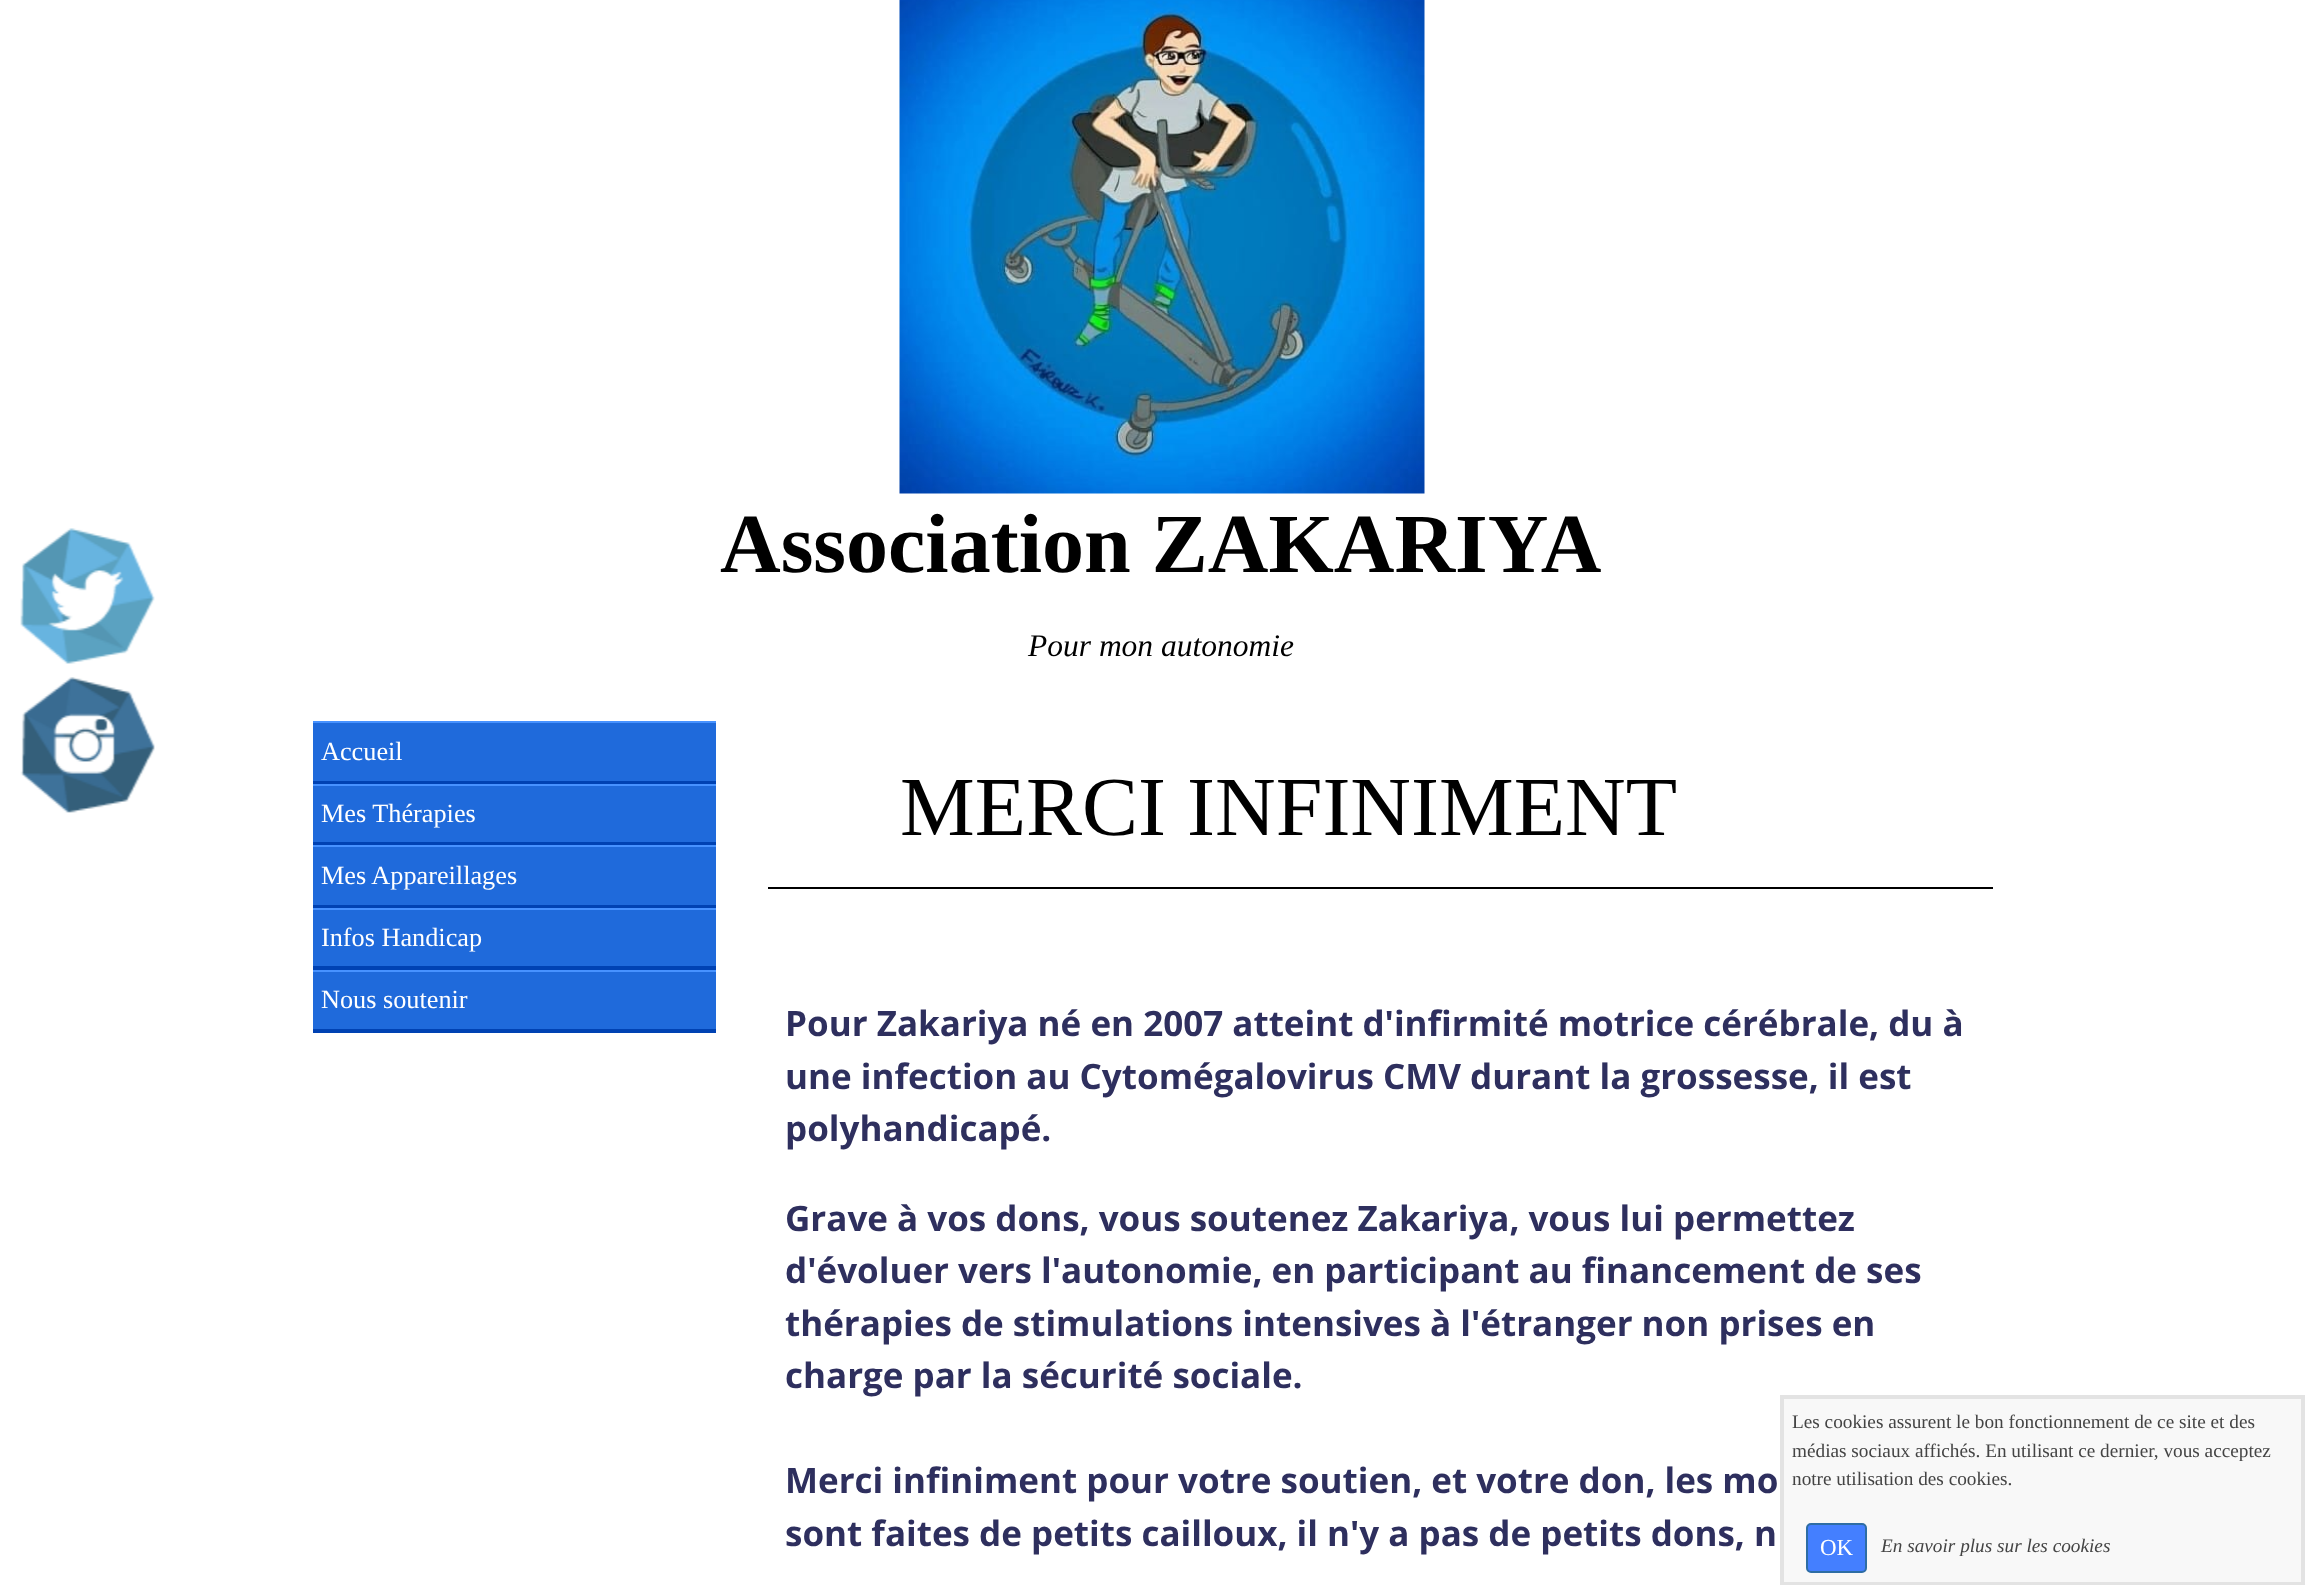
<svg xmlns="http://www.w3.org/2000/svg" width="2321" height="1585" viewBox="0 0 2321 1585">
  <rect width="100%" height="100%" fill="rgb(255,255,255)"/>
  <image x="20" y="528" width="135" height="136" href="pic1.png"/>
  <image x="20" y="677" width="135" height="136" href="pic2.png"/>
  <image x="899" y="0" width="526" height="494" href="pic3.png"/>
  <text x="720" y="572" font-family="Liberation Serif" font-size="84" font-weight="bold" fill="rgb(0,0,0)">Association ZAKARIYA</text>
  <text x="1028" y="656" font-family="Liberation Serif" font-size="31.5" font-style="italic" fill="rgb(0,0,0)">Pour mon autonomie</text>
  <rect x="313" y="723" width="403" height="58" fill="rgb(31,106,219)"/>
  <rect x="313" y="721" width="403" height="2" fill="rgb(71,146,255)"/>
  <rect x="313" y="781" width="403" height="3" fill="rgb(0,66,179)"/>
  <text x="321" y="760" font-family="Liberation Serif" font-size="26.25" fill="rgb(255,255,255)">Accueil</text>
  <rect x="313" y="786" width="403" height="56" fill="rgb(31,106,219)"/>
  <rect x="313" y="784" width="403" height="2" fill="rgb(71,146,255)"/>
  <rect x="313" y="842" width="403" height="3" fill="rgb(0,66,179)"/>
  <text x="321" y="822" font-family="Liberation Serif" font-size="26.25" fill="rgb(255,255,255)">Mes Thérapies</text>
  <rect x="313" y="847" width="403" height="58" fill="rgb(31,106,219)"/>
  <rect x="313" y="845" width="403" height="2" fill="rgb(71,146,255)"/>
  <rect x="313" y="905" width="403" height="3" fill="rgb(0,66,179)"/>
  <text x="321" y="884" font-family="Liberation Serif" font-size="26.25" fill="rgb(255,255,255)">Mes Appareillages</text>
  <rect x="313" y="910" width="403" height="56" fill="rgb(31,106,219)"/>
  <rect x="313" y="908" width="403" height="2" fill="rgb(71,146,255)"/>
  <rect x="313" y="966" width="403" height="4" fill="rgb(0,66,179)"/>
  <text x="321" y="946" font-family="Liberation Serif" font-size="26.25" fill="rgb(255,255,255)">Infos Handicap</text>
  <rect x="313" y="972" width="403" height="57" fill="rgb(31,106,219)"/>
  <rect x="313" y="970" width="403" height="2" fill="rgb(71,146,255)"/>
  <rect x="313" y="1029" width="403" height="4" fill="rgb(0,66,179)"/>
  <text x="321" y="1008" font-family="Liberation Serif" font-size="26.25" fill="rgb(255,255,255)">Nous soutenir</text>
  <rect x="768" y="887" width="1225" height="2" fill="rgb(0,0,0)"/>
  <text x="900" y="835" font-family="Liberation Serif" font-size="84" fill="rgb(0,0,0)">MERCI INFINIMENT</text>
  <g font-family="Open Sans" font-size="35" font-weight="bold" fill="rgb(46,47,94)">
    <text>
      <tspan x="785" y="1036">Pour Zakariya né en 2007 atteint d'infirmité motrice cérébrale, du à</tspan>
      <tspan x="785" y="1089">une infection au Cytomégalovirus CMV durant la grossesse, il est</tspan>
      <tspan x="785" y="1141">polyhandicapé.</tspan>
    </text>
    <text>
      <tspan x="785" y="1231">Grave à vos dons, vous soutenez Zakariya, vous lui permettez</tspan>
      <tspan x="785" y="1283">d'évoluer vers l'autonomie, en participant au financement de ses</tspan>
      <tspan x="785" y="1336">thérapies de stimulations intensives à l'étranger non prises en</tspan>
      <tspan x="785" y="1388">charge par la sécurité sociale.</tspan>
    </text>
    <text>
      <tspan x="785" y="1493">Merci infiniment pour votre soutien, et votre don, les mo</tspan>
      <tspan x="785" y="1546">sont faites de petits cailloux, il n'y a pas de petits dons, n</tspan>
    </text>
  </g>
  <rect x="1782" y="1397" width="521" height="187" fill="rgba(247,247,247,0.85)" stroke="rgb(227,227,227)" stroke-width="4"/>
  <g font-family="Liberation Serif" font-size="19.25" fill="rgb(68,68,68)">
    <text>
      <tspan x="1792" y="1428">Les cookies assurent le bon fonctionnement de ce site et des</tspan>
      <tspan x="1792" y="1457">médias sociaux affichés. En utilisant ce dernier, vous acceptez</tspan>
      <tspan x="1792" y="1485">notre utilisation des cookies.</tspan>
    </text>
  </g>
  <rect x="1807" y="1524" width="59" height="48" rx="4" fill="rgb(68,127,255)" stroke="rgb(46,109,164)" stroke-width="2"/>
  <text x="1820" y="1555" font-family="Liberation Serif" font-size="23" fill="rgb(255,255,255)">OK</text>
  <text x="1881" y="1552" font-family="Liberation Serif" font-size="19.25" font-style="italic" fill="rgb(68,68,68)">En savoir plus sur les cookies</text>
</svg>
